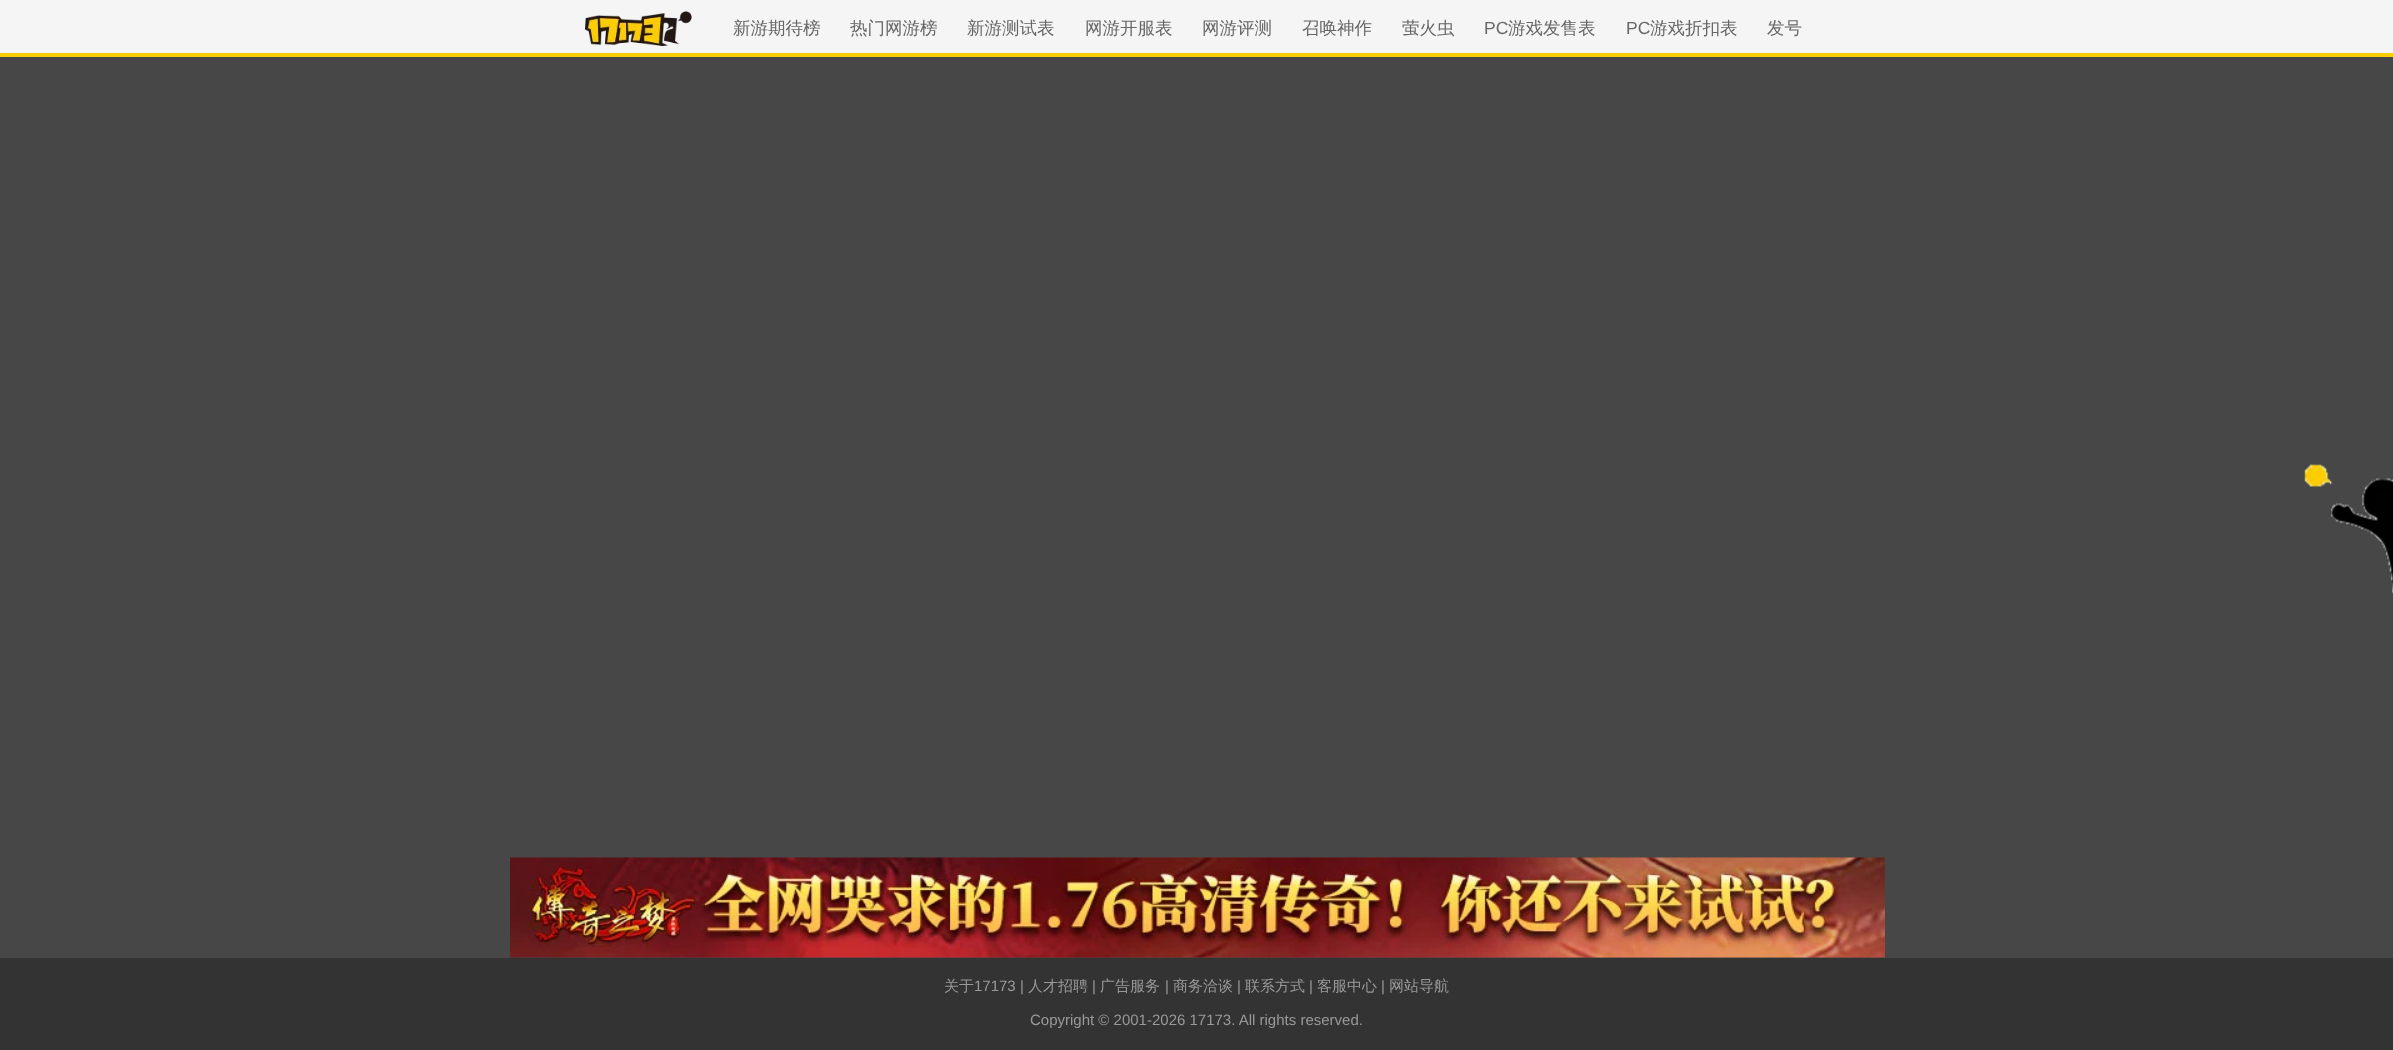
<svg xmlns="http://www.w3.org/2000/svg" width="2393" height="1050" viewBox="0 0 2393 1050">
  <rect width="100%" height="100%" fill="rgb(71,71,71)"/>
  <rect x="0" y="0" width="2393" height="53" fill="rgb(245,245,245)"/>
  <rect x="0" y="53" width="2393" height="4" fill="rgb(255,205,0)"/>
  <image x="585" y="11" width="107" height="35" href="pic1.png"/>
  <g font-family="WenQuanYi Zen Hei" font-size="17.5" font-weight="500" fill="rgb(102,102,102)">
    <text x="733" y="34">新游期待榜</text>
    <text x="850" y="34">热门网游榜</text>
    <text x="967" y="34">新游测试表</text>
    <text x="1085" y="34">网游开服表</text>
    <text x="1202" y="34">网游评测</text>
    <text x="1302" y="34">召唤神作</text>
    <text x="1402" y="34">萤火虫</text>
  </g>
  <text x="1484" y="34" font-family="Liberation Sans" font-size="17.5" fill="rgb(102,102,102)">PC</text>
  <text x="1508" y="34" font-family="WenQuanYi Zen Hei" font-size="17.5" font-weight="500" fill="rgb(102,102,102)">游戏发售表</text>
  <text x="1626" y="34" font-family="Liberation Sans" font-size="17.5" fill="rgb(102,102,102)">PC</text>
  <g font-family="WenQuanYi Zen Hei" font-size="17.5" font-weight="500" fill="rgb(102,102,102)">
    <text x="1650" y="34">游戏折扣表</text>
    <text x="1767" y="34">发号</text>
  </g>
  <image x="510" y="857" width="1375" height="101" href="pic2.png"/>
  <image x="2304" y="464" width="89" height="130" href="pic3.png"/>
  <rect x="0" y="958" width="2393" height="92" fill="rgb(51,51,51)"/>
  <text x="944" y="991" font-family="WenQuanYi Zen Hei" font-size="15" font-weight="500" fill="rgb(153,153,153)">关于</text>
  <text x="974" y="991" font-family="Liberation Sans" font-size="15" fill="rgb(153,153,153)">17173 |</text>
  <text x="1028" y="991" font-family="WenQuanYi Zen Hei" font-size="15" font-weight="500" fill="rgb(153,153,153)">人才招聘</text>
  <text x="1092" y="991" font-family="Liberation Sans" font-size="15" fill="rgb(153,153,153)">|</text>
  <text x="1100" y="991" font-family="WenQuanYi Zen Hei" font-size="15" font-weight="500" fill="rgb(153,153,153)">广告服务</text>
  <text x="1165" y="991" font-family="Liberation Sans" font-size="15" fill="rgb(153,153,153)">|</text>
  <text x="1173" y="991" font-family="WenQuanYi Zen Hei" font-size="15" font-weight="500" fill="rgb(153,153,153)">商务洽谈</text>
  <text x="1237" y="991" font-family="Liberation Sans" font-size="15" fill="rgb(153,153,153)">|</text>
  <text x="1245" y="991" font-family="WenQuanYi Zen Hei" font-size="15" font-weight="500" fill="rgb(153,153,153)">联系方式</text>
  <text x="1309" y="991" font-family="Liberation Sans" font-size="15" fill="rgb(153,153,153)">|</text>
  <text x="1317" y="991" font-family="WenQuanYi Zen Hei" font-size="15" font-weight="500" fill="rgb(153,153,153)">客服中心</text>
  <text x="1381" y="991" font-family="Liberation Sans" font-size="15" fill="rgb(153,153,153)">|</text>
  <text x="1389" y="991" font-family="WenQuanYi Zen Hei" font-size="15" font-weight="500" fill="rgb(153,153,153)">网站导航</text>
  <text x="1030" y="1025" font-family="Liberation Sans" font-size="15" fill="rgb(153,153,153)">Copyright © 2001-2026 17173. All rights reserved.</text>
</svg>
